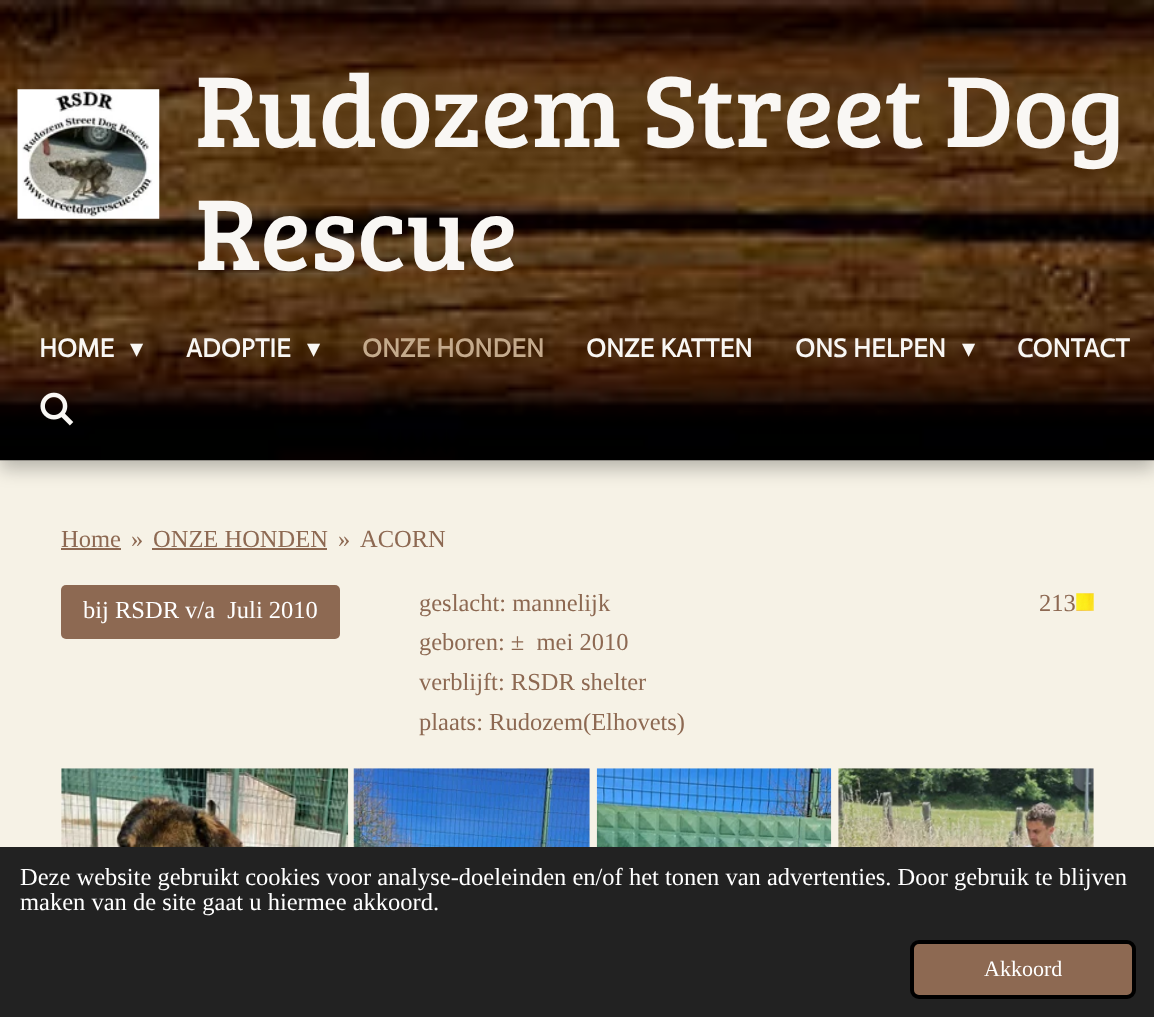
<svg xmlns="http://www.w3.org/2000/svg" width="1154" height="1017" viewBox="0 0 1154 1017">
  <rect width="100%" height="100%" fill="rgb(246,242,230)"/>
  <rect x="0" y="9" width="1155" height="460" fill="rgba(0,0,0,0.25)" filter="blur(9px)"/>
  <image x="0" y="0" width="1154" height="461" href="pic1.png"/>
  <image x="17" y="89" width="143" height="130" href="pic2.png"/>
  <g font-family="Bree Serif" font-size="104.1" fill="rgb(249,247,244)">
    <text>
      <tspan x="195" y="147">Rudozem Street Dog</tspan>
      <tspan x="195" y="270">Rescue</tspan>
    </text>
  </g>
  <text x="39" y="357" font-family="Actor" font-size="26.25" font-weight="bold" fill="rgb(249,247,244)">HOME</text>
  <text x="130" y="357" font-family="DejaVu Sans" font-size="26.25" fill="rgb(249,247,244)">▾</text>
  <text x="186" y="357" font-family="Actor" font-size="26.25" font-weight="bold" fill="rgb(249,247,244)">ADOPTIE</text>
  <text x="307" y="357" font-family="DejaVu Sans" font-size="26.25" fill="rgb(249,247,244)">▾</text>
  <text x="362" y="357" font-family="Actor" font-size="26.25" font-weight="bold" fill="rgb(196,170,140)">ONZE HONDEN</text>
  <g font-family="Actor" font-size="26.25" font-weight="bold" fill="rgb(249,247,244)">
    <text x="586" y="357">ONZE KATTEN</text>
    <text x="795" y="357">ONS HELPEN</text>
  </g>
  <text x="962" y="357" font-family="DejaVu Sans" font-size="26.25" fill="rgb(249,247,244)">▾</text>
  <text x="1017" y="357" font-family="Actor" font-size="26.25" font-weight="bold" fill="rgb(249,247,244)">CONTACT</text>
  <image x="40" y="392" width="34" height="34" href="pic3.png"/>
  <text x="61" y="547" font-family="Liberation Serif" font-size="24.5" fill="rgb(141,105,82)">Home</text>
  <rect x="61" y="548" width="60" height="2" fill="rgb(141,105,82)"/>
  <g font-family="Liberation Serif" font-size="24.5" fill="rgb(141,105,82)">
    <text x="131" y="547">»</text>
    <text x="153" y="547">ONZE HONDEN</text>
  </g>
  <rect x="152" y="548" width="175" height="2" fill="rgb(141,105,82)"/>
  <g font-family="Liberation Serif" font-size="24.5" fill="rgb(141,105,82)">
    <text x="338" y="547">»</text>
    <text x="360" y="547">ACORN</text>
  </g>
  <rect x="61" y="585" width="279" height="54" rx="5" fill="rgb(141,105,82)"/>
  <text x="83" y="618" font-family="Liberation Serif" font-size="24.5" fill="rgb(255,255,255)" xml:space="preserve">bij RSDR v/a  Juli 2010</text>
  <g font-family="Liberation Serif" font-size="24.5" fill="rgb(141,105,82)">
    <text xml:space="preserve"><tspan x="419" y="611">geslacht: mannelijk</tspan><tspan x="419" y="650">geboren: ±  mei 2010</tspan><tspan x="419" y="690">verblijft: RSDR shelter</tspan><tspan x="419" y="730">plaats: Rudozem(Elhovets)</tspan></text>
    <text x="1039" y="611">213</text>
  </g>
  <image x="1076" y="593" width="18" height="18" href="pic4.png"/>
  <image x="61" y="768" width="288" height="79" href="pic5.png"/>
  <image x="353" y="768" width="237" height="79" href="pic6.png"/>
  <image x="596" y="768" width="236" height="79" href="pic7.png"/>
  <image x="838" y="768" width="256" height="79" href="pic8.png"/>
  <rect x="0" y="847" width="1154" height="170" fill="rgb(34,34,34)"/>
  <g font-family="Liberation Serif" font-size="24.5" fill="rgb(255,255,255)">
    <text>
      <tspan x="20" y="885">Deze website gebruikt cookies voor analyse-doeleinden en/of het tonen van advertenties. Door gebruik te blijven</tspan>
      <tspan x="20" y="910">maken van de site gaat u hiermee akkoord.</tspan>
    </text>
  </g>
  <rect x="912" y="942" width="222" height="55" rx="7" fill="rgb(141,105,82)" stroke="rgb(0,0,0)" stroke-width="4"/>
  <text x="984" y="976" font-family="Liberation Serif" font-size="22" fill="rgb(255,255,255)">Akkoord</text>
</svg>
